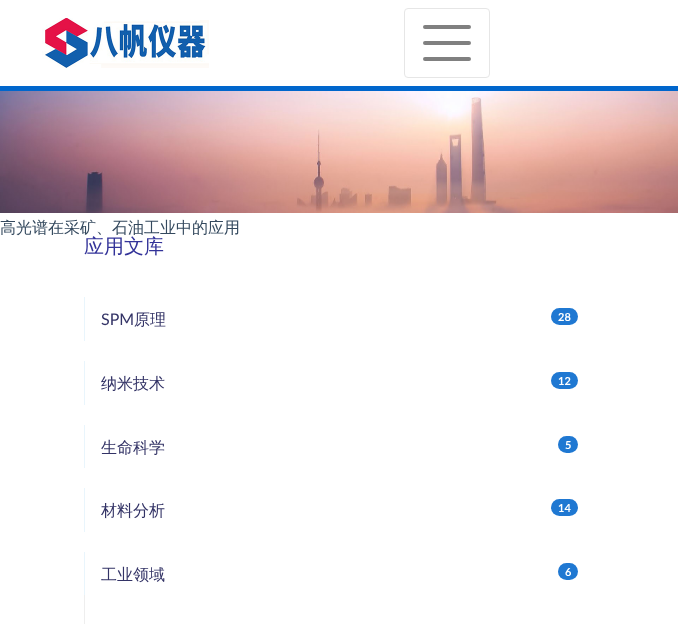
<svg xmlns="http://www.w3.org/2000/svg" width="678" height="624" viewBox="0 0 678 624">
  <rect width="100%" height="100%" fill="rgb(255,255,255)"/>
  <rect x="0" y="86" width="678" height="5" fill="rgb(0,102,204)"/>
  <image x="42" y="18" width="167" height="50" href="pic1.png"/>
  <rect x="404.5" y="8.5" width="85" height="69" rx="3.5" fill="none" stroke="rgb(230,230,230)"/>
  <path d="M425 27H469M425 43H469M425 59H469" fill="none" stroke="rgb(128,128,128)" stroke-width="4" stroke-linecap="round"/>
  <image x="0" y="91" width="678" height="122" href="pic2.png"/>
  <text x="0" y="233" font-family="WenQuanYi Zen Hei" font-size="16" font-weight="500" fill="rgb(52,73,94)">高光谱在采矿、石油工业中的应用</text>
  <text x="84" y="253" font-family="WenQuanYi Zen Hei" font-size="20" font-weight="500" fill="rgb(51,51,153)">应用文库</text>
  <rect x="84" y="297" width="1" height="44" fill="rgb(233,245,252)"/>
  <text x="101" y="325" font-family="Lato" font-size="16" fill="rgb(51,51,102)">SPM</text>
  <text x="134" y="325" font-family="WenQuanYi Zen Hei" font-size="16" font-weight="500" fill="rgb(51,51,102)">原理</text>
  <rect x="551" y="308" width="27" height="17" rx="8.5" fill="rgb(31,120,210)"/>
  <text x="558" y="321" font-family="Lato" font-size="11" font-weight="bold" fill="rgb(255,255,255)">28</text>
  <rect x="84" y="361" width="1" height="44" fill="rgb(233,245,252)"/>
  <text x="101" y="389" font-family="WenQuanYi Zen Hei" font-size="16" font-weight="500" fill="rgb(51,51,102)">纳米技术</text>
  <rect x="551" y="372" width="27" height="17" rx="8.5" fill="rgb(31,120,210)"/>
  <text x="558" y="385" font-family="Lato" font-size="11" font-weight="bold" fill="rgb(255,255,255)">12</text>
  <rect x="84" y="425" width="1" height="43" fill="rgb(233,245,252)"/>
  <text x="101" y="453" font-family="WenQuanYi Zen Hei" font-size="16" font-weight="500" fill="rgb(51,51,102)">生命科学</text>
  <rect x="558" y="436" width="20" height="17" rx="8.5" fill="rgb(31,120,210)"/>
  <text x="565" y="449" font-family="Lato" font-size="11" font-weight="bold" fill="rgb(255,255,255)">5</text>
  <rect x="84" y="488" width="1" height="44" fill="rgb(233,245,252)"/>
  <text x="101" y="516" font-family="WenQuanYi Zen Hei" font-size="16" font-weight="500" fill="rgb(51,51,102)">材料分析</text>
  <rect x="551" y="499" width="27" height="17" rx="8.5" fill="rgb(31,120,210)"/>
  <text x="558" y="512" font-family="Lato" font-size="11" font-weight="bold" fill="rgb(255,255,255)">14</text>
  <rect x="84" y="552" width="1" height="43" fill="rgb(233,245,252)"/>
  <text x="101" y="580" font-family="WenQuanYi Zen Hei" font-size="16" font-weight="500" fill="rgb(51,51,102)">工业领域</text>
  <rect x="558" y="563" width="20" height="17" rx="8.5" fill="rgb(31,120,210)"/>
  <text x="565" y="576" font-family="Lato" font-size="11" font-weight="bold" fill="rgb(255,255,255)">6</text>
  <rect x="84" y="595" width="1" height="29" fill="rgb(238,238,238)"/>
</svg>
